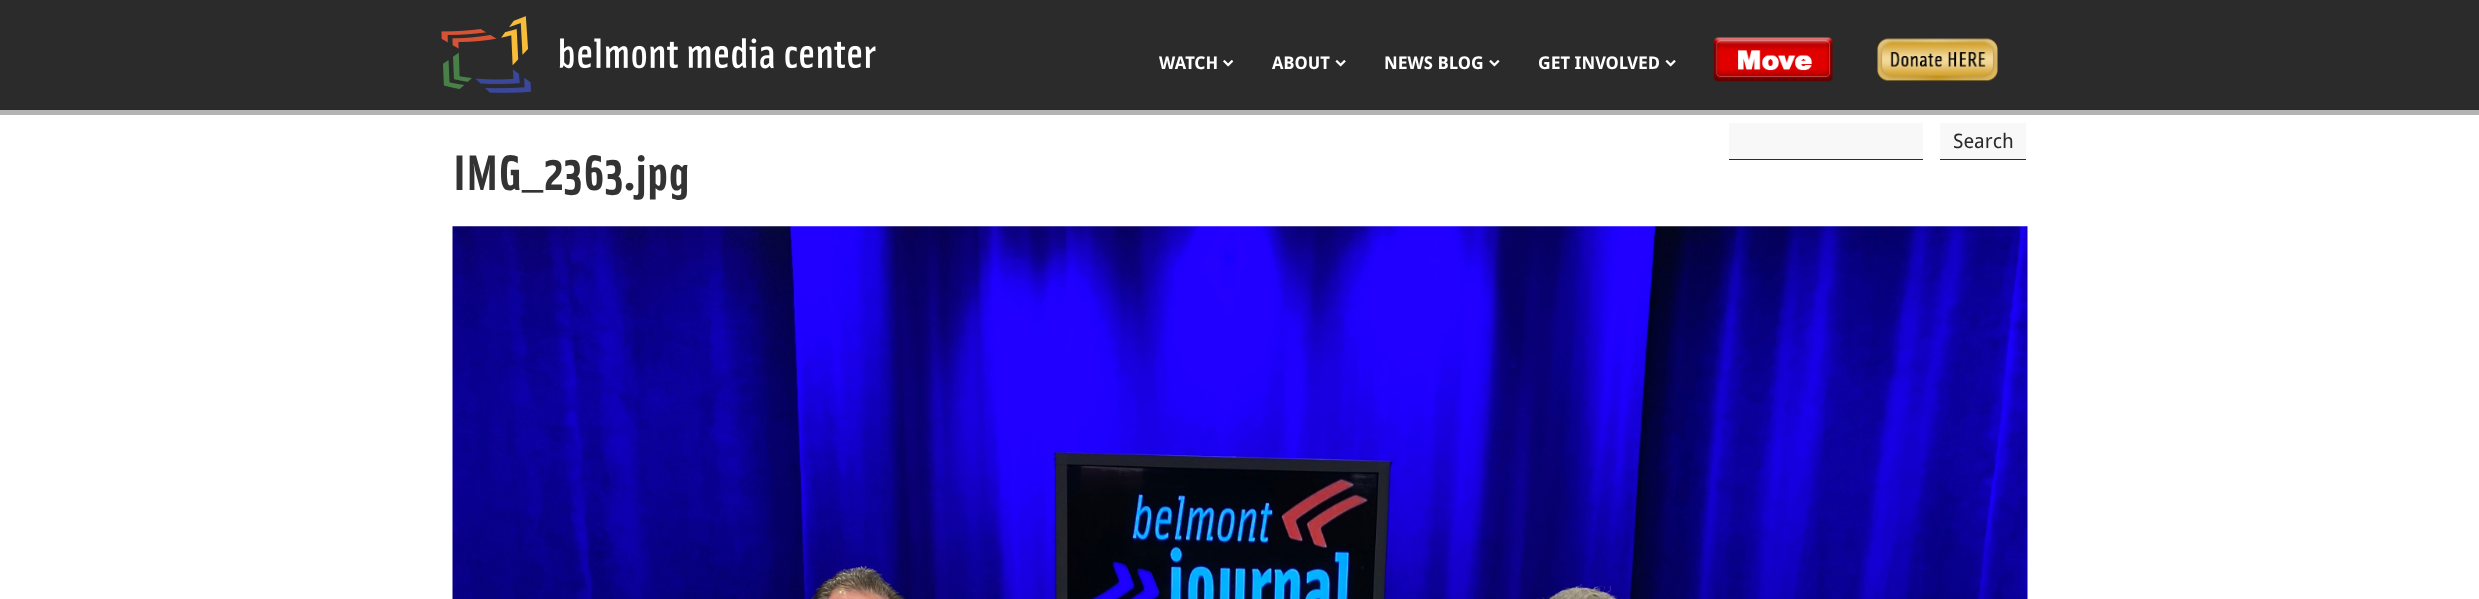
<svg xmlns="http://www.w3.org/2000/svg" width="2479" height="599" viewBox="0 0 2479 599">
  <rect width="100%" height="100%" fill="rgb(255,255,255)"/>
  <rect x="0" y="110" width="2479" height="5" fill="rgb(179,179,179)"/>
  <rect x="0" y="0" width="2479" height="110" fill="rgb(43,43,43)"/>
  <image x="441" y="16" width="435" height="77" href="pic1.png"/>
  <text x="1159" y="69" font-family="Droid Sans" font-size="17.5" font-weight="bold" fill="rgb(255,255,255)">WATCH</text>
  <image x="1223" y="60" width="11" height="7" href="pic2.png"/>
  <text x="1272" y="69" font-family="Droid Sans" font-size="17.5" font-weight="bold" fill="rgb(255,255,255)">ABOUT</text>
  <image x="1335" y="60" width="11" height="7" href="pic3.png"/>
  <text x="1384" y="69" font-family="Droid Sans" font-size="17.5" font-weight="bold" fill="rgb(255,255,255)">NEWS BLOG</text>
  <image x="1489" y="60" width="11" height="7" href="pic4.png"/>
  <text x="1538" y="69" font-family="Droid Sans" font-size="17.5" font-weight="bold" fill="rgb(255,255,255)">GET INVOLVED</text>
  <image x="1665" y="60" width="11" height="7" href="pic3.png"/>
  <image x="1713" y="37" width="120" height="45" href="pic5.png"/>
  <image x="1877" y="38" width="121" height="44" href="pic6.png"/>
  <rect x="1729" y="123" width="194" height="36" fill="rgb(248,248,248)"/>
  <rect x="1729" y="159" width="194" height="1" fill="rgb(43,43,43)"/>
  <rect x="1940" y="123" width="86" height="36" fill="rgb(248,248,248)"/>
  <rect x="1940" y="159" width="86" height="1" fill="rgb(43,43,43)"/>
  <text x="1953" y="148" font-family="Droid Sans" font-size="20" fill="rgb(43,43,43)">Search</text>
  <text x="453" y="190" font-family="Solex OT" font-size="50" font-weight="bold" fill="rgb(51,51,51)">IMG_2363.jpg</text>
  <image x="452" y="226" width="1576" height="373" href="pic7.png"/>
</svg>
